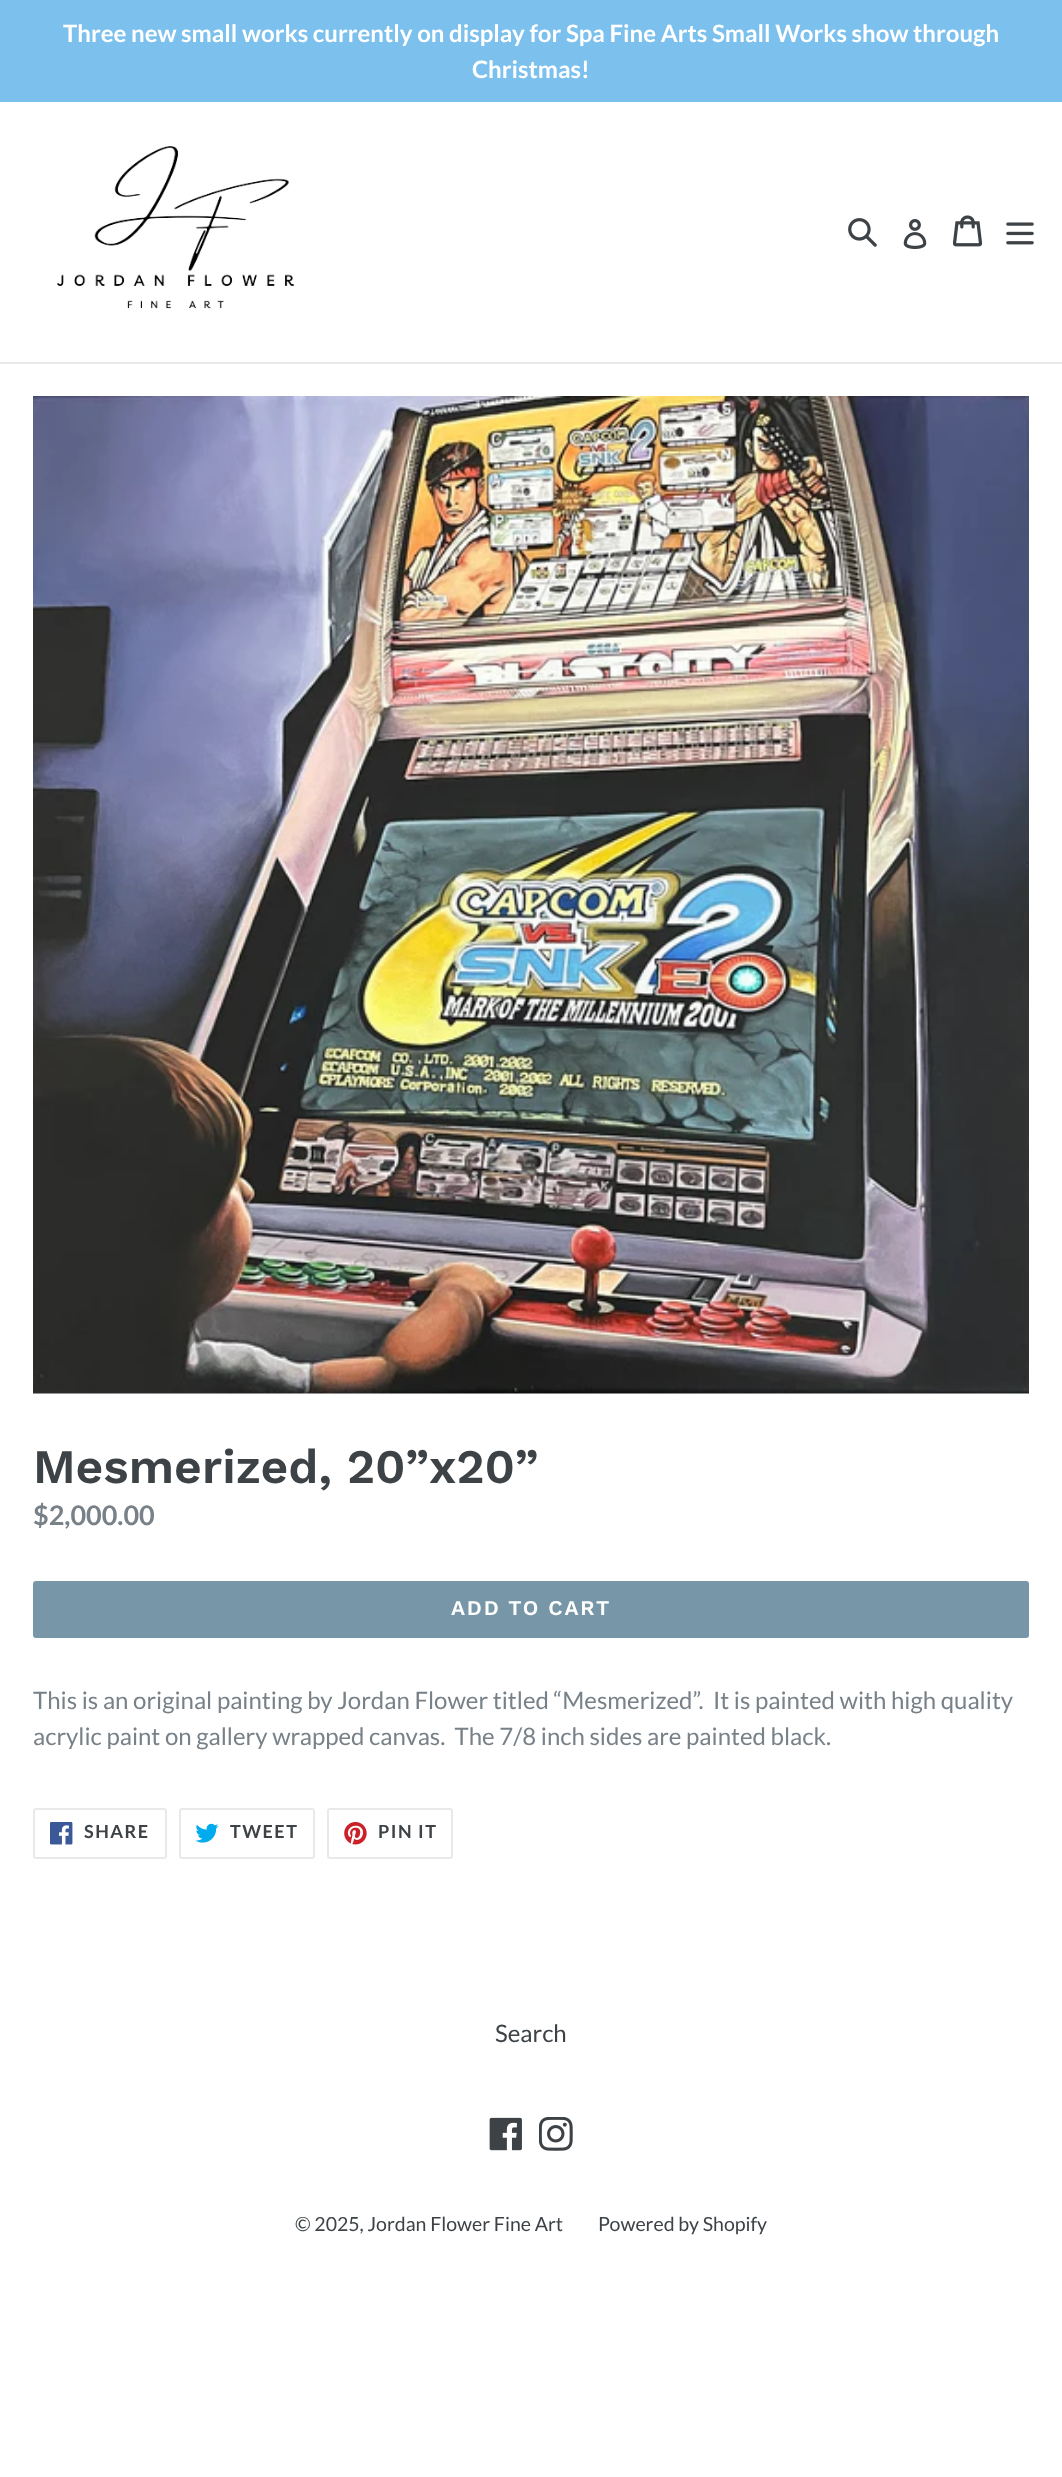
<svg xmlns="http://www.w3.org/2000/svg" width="1062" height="2477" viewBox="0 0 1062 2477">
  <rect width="100%" height="100%" fill="rgb(255,255,255)"/>
  <rect x="0" y="0" width="1062" height="102" fill="rgb(124,192,238)"/>
  <g font-family="Lato" font-size="24" font-weight="bold" fill="rgb(255,255,255)">
    <text x="63" y="42">Three new small works currently on display for Spa Fine Arts Small Works show through</text>
    <text x="472" y="78">Christmas!</text>
  </g>
  <rect x="0" y="362" width="1062" height="2" fill="rgb(232,233,235)"/>
  <image x="57" y="146" width="238" height="163" href="pic1.png"/>
  <image x="848" y="218" width="29" height="29" href="pic2.png"/>
  <image x="903" y="219" width="24" height="30" href="pic3.png"/>
  <image x="953" y="215" width="30" height="32" href="pic4.png"/>
  <image x="1006" y="222" width="28" height="23" href="pic5.png"/>
  <image x="33" y="396" width="996" height="998" href="pic6.png"/>
  <text x="33" y="1483" font-family="Work Sans" font-size="48" font-weight="600" fill="rgb(61,66,70)">Mesmerized, 20”x20”</text>
  <text x="33" y="1525" font-family="Lato" font-size="27" font-weight="bold" fill="rgb(120,129,136)">$2,000.00</text>
  <rect x="33" y="1581" width="996" height="57" rx="3" fill="rgb(119,150,168)"/>
  <text x="451" y="1615" font-family="Work Sans" font-size="21" font-weight="600" letter-spacing="1.75" fill="rgb(255,255,255)">ADD TO CART</text>
  <g font-family="Lato" font-size="24" fill="rgb(120,129,136)">
    <text xml:space="preserve"><tspan x="33" y="1709">This is an original painting by Jordan Flower titled “Mesmerized”.  It is painted with high quality</tspan><tspan x="33" y="1745">acrylic paint on gallery wrapped canvas.  The 7/8 inch sides are painted black.</tspan></text>
  </g>
  <rect x="34" y="1809" width="132" height="49" rx="2" fill="none" stroke="rgb(232,233,235)" stroke-width="2"/>
  <image x="50" y="1822" width="23" height="23" href="pic7.png"/>
  <text x="84" y="1838" font-family="Lato" font-size="18" font-weight="bold" letter-spacing="1.5" fill="rgb(61,66,70)">SHARE</text>
  <rect x="180" y="1809" width="134" height="49" rx="2" fill="none" stroke="rgb(232,233,235)" stroke-width="2"/>
  <image x="195" y="1823" width="24" height="20" href="pic8.png"/>
  <text x="230" y="1838" font-family="Lato" font-size="18" font-weight="bold" letter-spacing="1.5" fill="rgb(61,66,70)">TWEET</text>
  <rect x="328" y="1809" width="124" height="49" rx="2" fill="none" stroke="rgb(232,233,235)" stroke-width="2"/>
  <image x="344" y="1822" width="23" height="23" href="pic9.png"/>
  <text x="378" y="1838" font-family="Lato" font-size="18" font-weight="bold" letter-spacing="1.5" fill="rgb(61,66,70)">PIN IT</text>
  <text x="495" y="2042" font-family="Lato" font-size="24" fill="rgb(61,66,70)">Search</text>
  <image x="489" y="2117" width="33" height="34" href="pic10.png"/>
  <image x="539" y="2117" width="34" height="34" href="pic11.png"/>
  <g font-family="Lato" font-size="19.5" fill="rgb(61,66,70)">
    <text x="295" y="2231">© 2025, Jordan Flower Fine Art</text>
    <text x="598" y="2231">Powered by Shopify</text>
  </g>
</svg>
